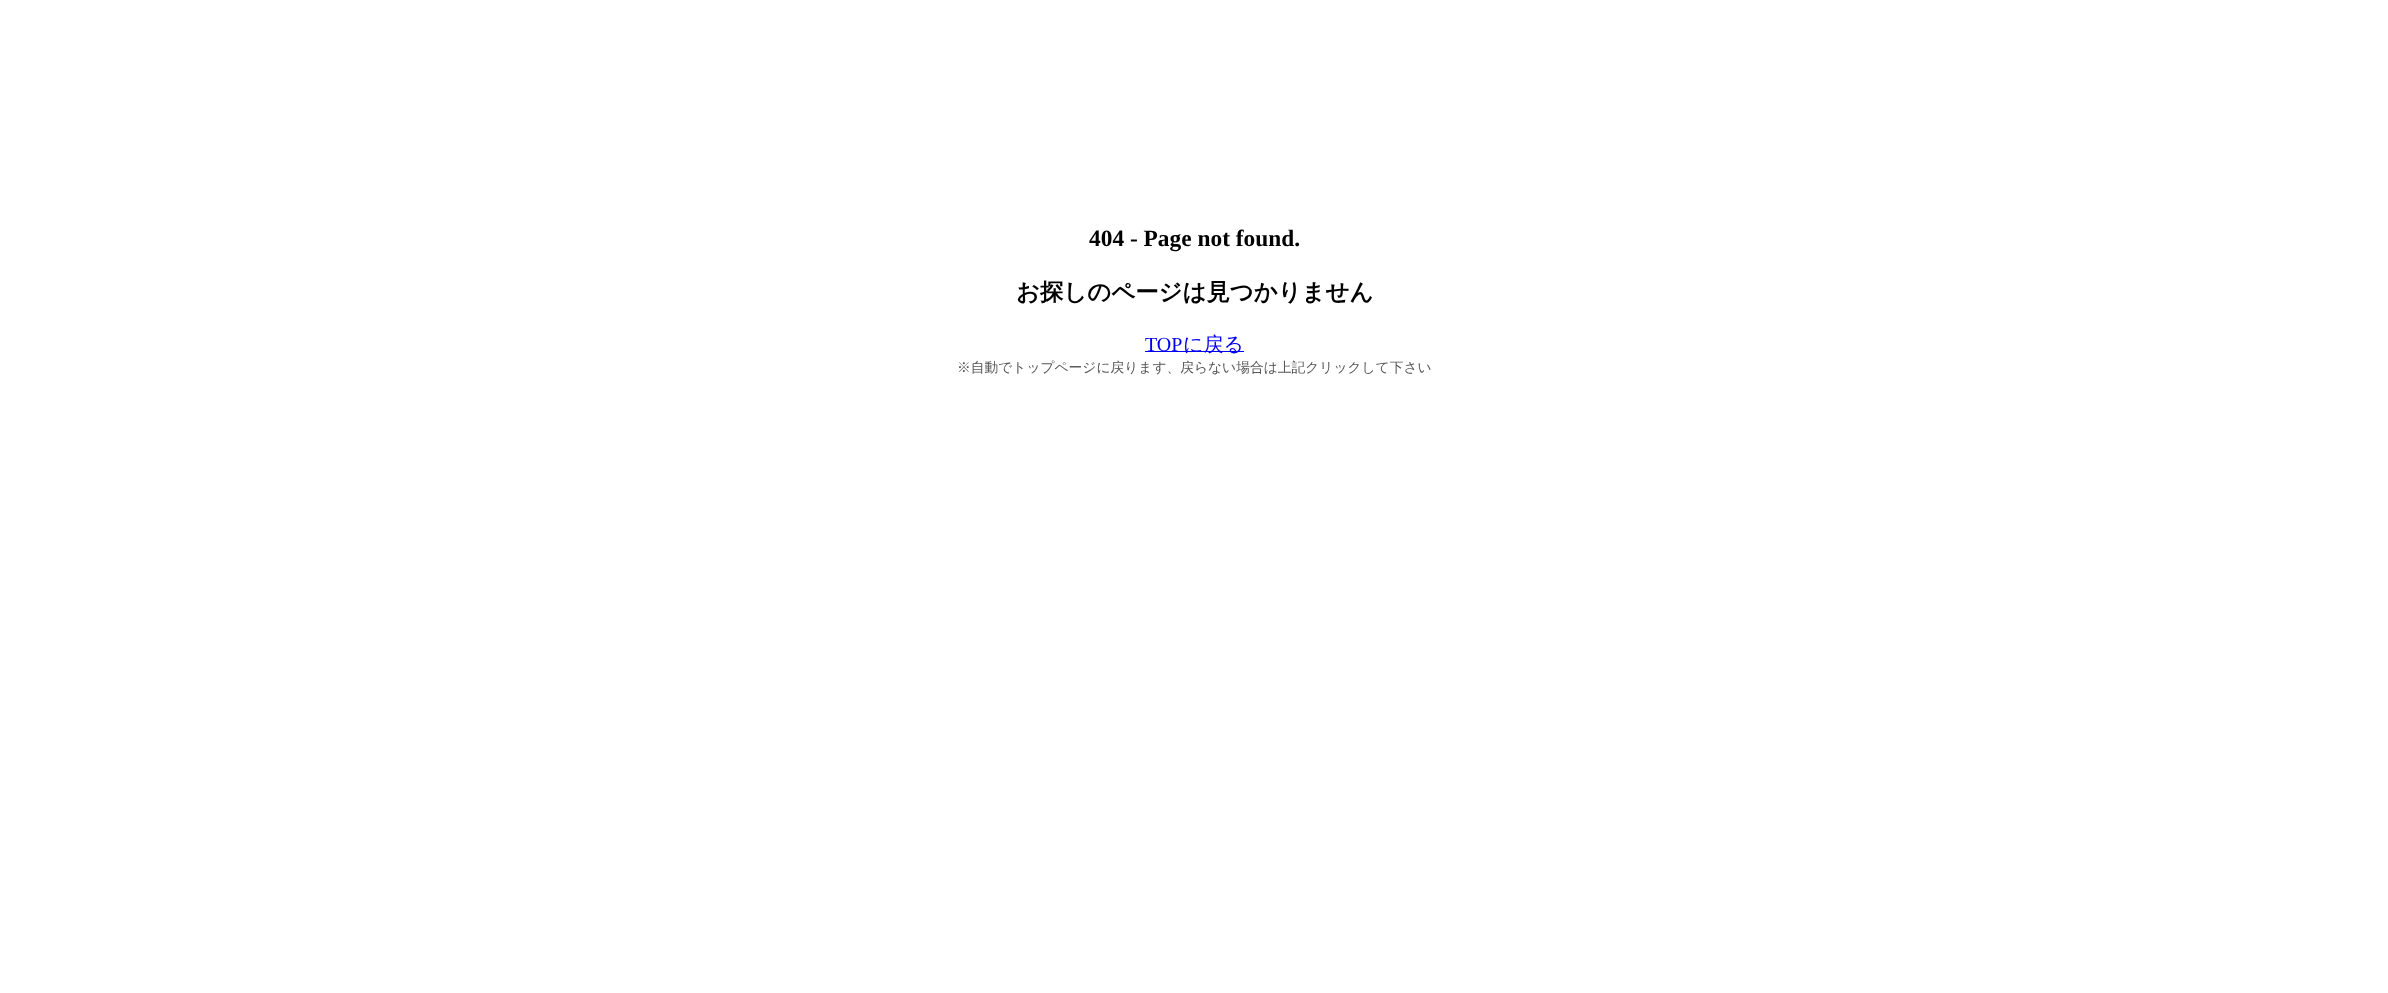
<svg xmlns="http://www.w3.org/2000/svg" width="2388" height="993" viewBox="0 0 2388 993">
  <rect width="100%" height="100%" fill="rgb(255,255,255)"/>
  <text x="1089" y="246" font-family="Liberation Serif" font-size="23.4" font-weight="bold" fill="rgb(0,0,0)">404 - Page not found.</text>
  <text x="1016" y="300" font-family="WenQuanYi Zen Hei" font-size="23.4" font-weight="bold" fill="rgb(0,0,0)">お探しのページは見つかりません</text>
  <rect x="1145" y="351" width="99" height="1" fill="rgb(0,0,238)"/>
  <text x="1145" y="351" font-family="Liberation Serif" font-size="20" fill="rgb(0,0,238)">TOP</text>
  <text x="1183" y="351" font-family="WenQuanYi Zen Hei" font-size="20" font-weight="500" fill="rgb(0,0,238)">に戻る</text>
  <text x="957" y="372" font-family="WenQuanYi Zen Hei" font-size="13.75" font-weight="500" fill="rgb(85,85,85)">※自動でトップページに戻ります、戻らない場合は上記クリックして下さい</text>
</svg>
